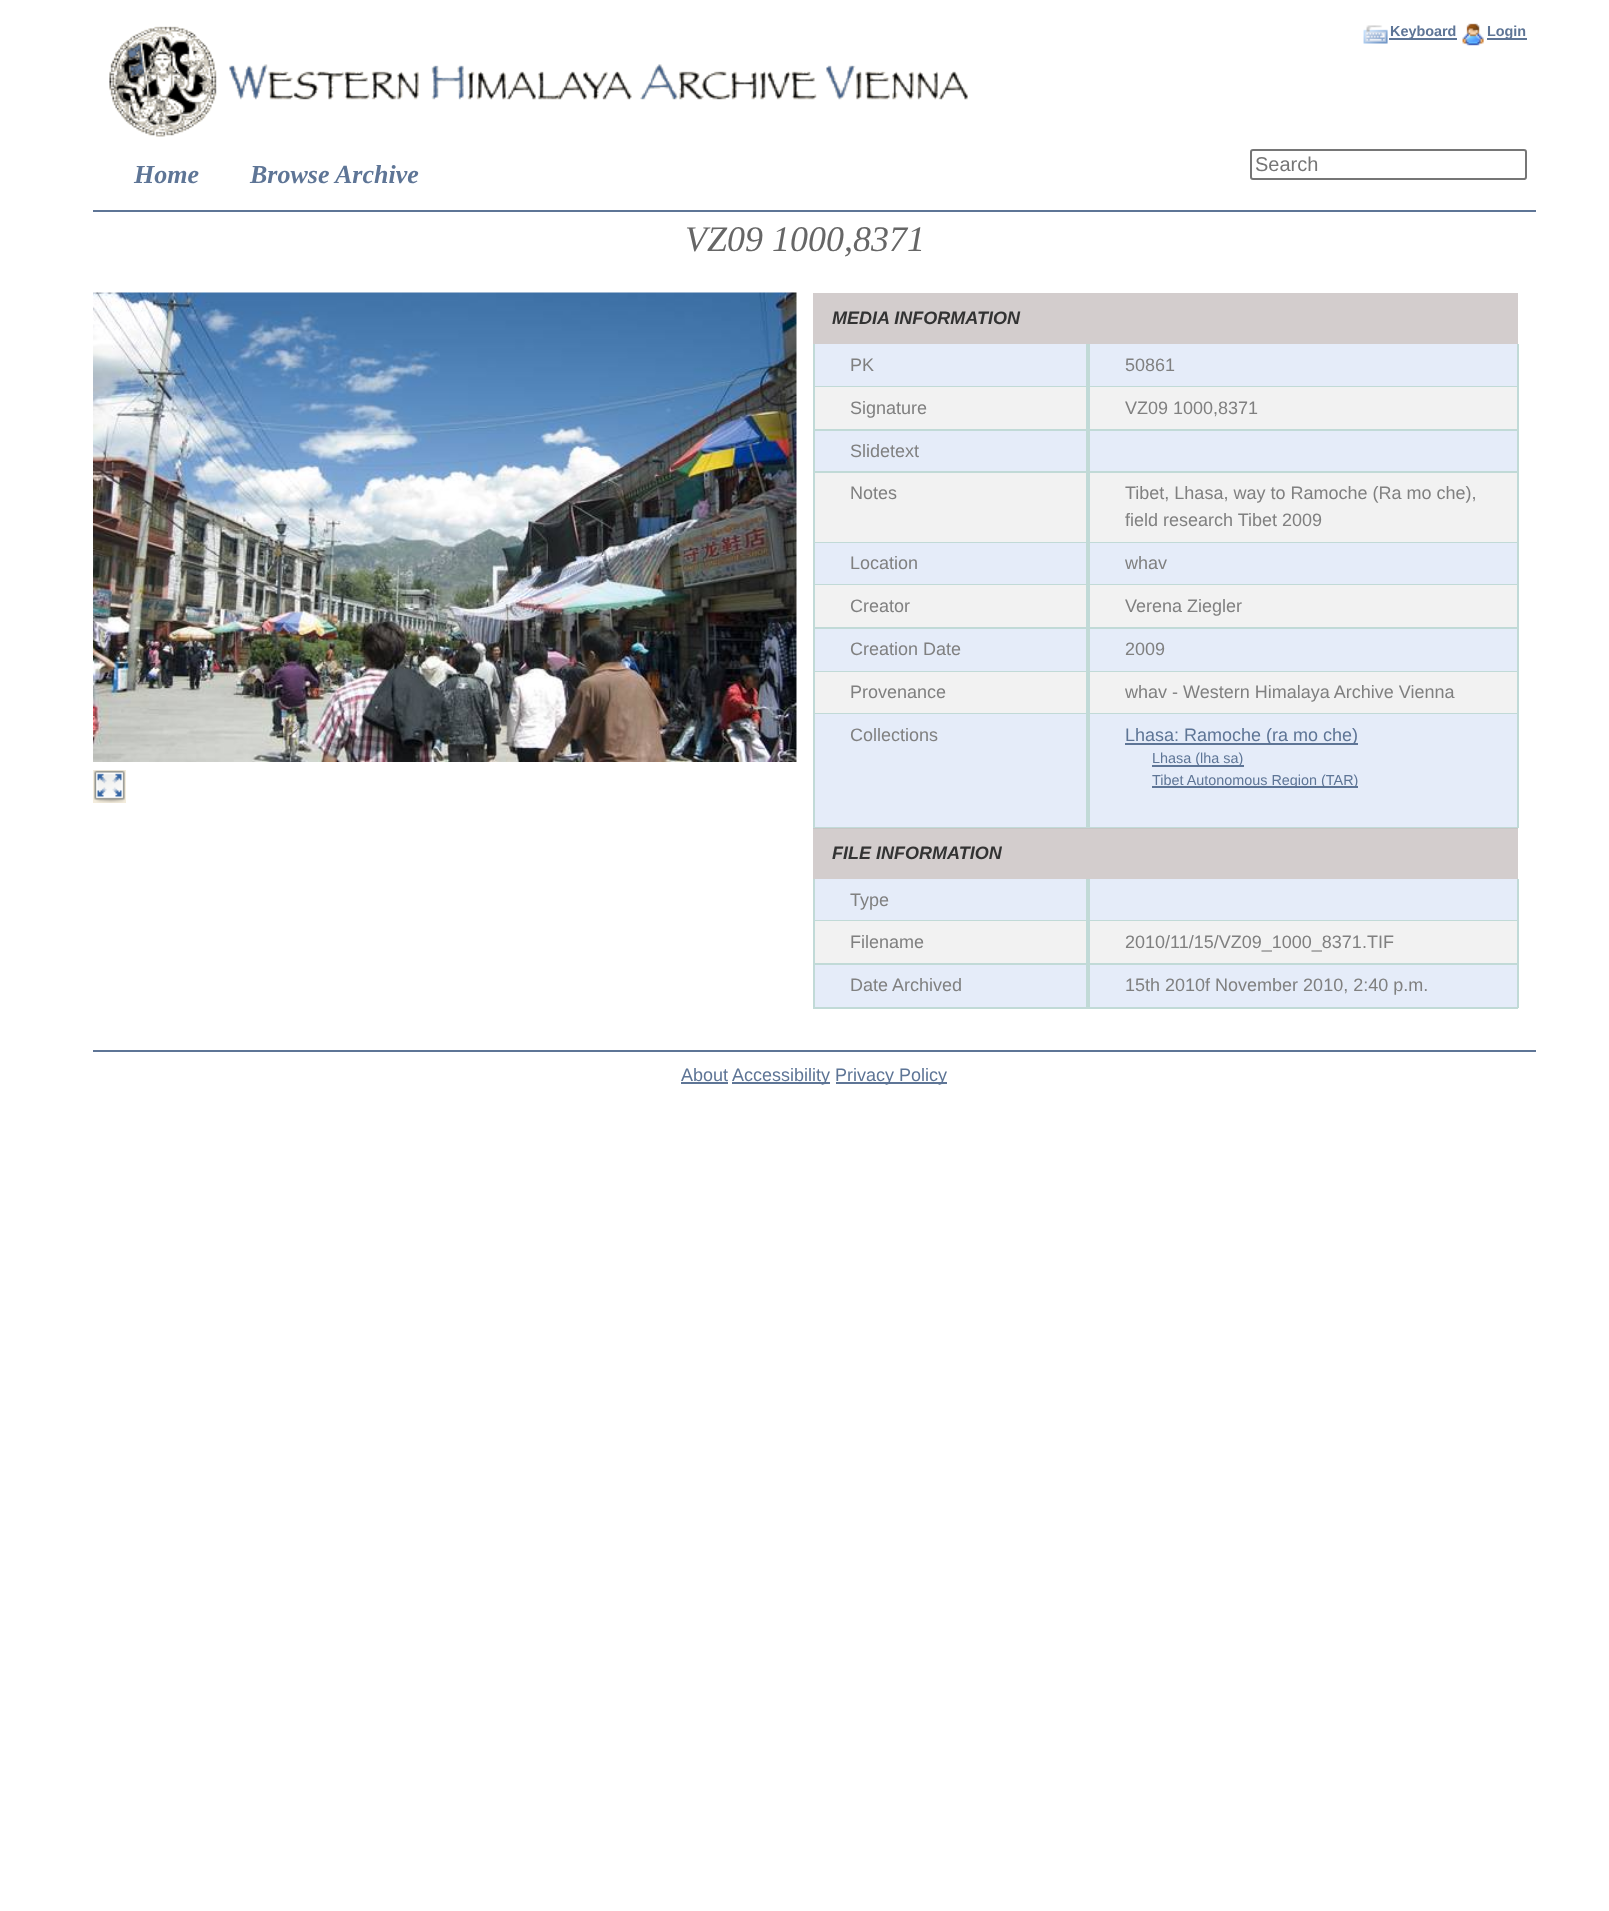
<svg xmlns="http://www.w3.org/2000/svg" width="1609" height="1911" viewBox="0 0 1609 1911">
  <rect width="100%" height="100%" fill="rgb(255,255,255)"/>
  <rect x="813" y="829" width="705" height="50" fill="rgb(211,205,205)"/>
  <rect x="93" y="210" width="1443" height="2" fill="rgb(94,117,150)"/>
  <image x="109" y="26" width="859" height="111" href="pic1.png"/>
  <image x="1363" y="25" width="25" height="19" href="pic2.png"/>
  <rect x="1389" y="38" width="68" height="2" fill="rgb(94,117,150)"/>
  <text x="1390" y="36" font-family="Liberation Sans" font-size="14.4" font-weight="bold" fill="rgb(94,117,150)">Keyboard</text>
  <image x="1462" y="23" width="22" height="23" href="pic3.png"/>
  <rect x="1487" y="38" width="40" height="2" fill="rgb(94,117,150)"/>
  <text x="1487" y="36" font-family="Liberation Sans" font-size="14.4" font-weight="bold" fill="rgb(94,117,150)">Login</text>
  <g font-family="Liberation Serif" font-size="26" font-weight="bold" font-style="italic" fill="rgb(94,117,150)">
    <text x="134" y="183">Home</text>
    <text x="250" y="183">Browse Archive</text>
  </g>
  <rect x="1251" y="150" width="275" height="29" rx="2" fill="none" stroke="rgb(118,118,118)" stroke-width="2"/>
  <text x="1255" y="171" font-family="Liberation Sans" font-size="20" fill="rgb(117,117,117)">Search</text>
  <text x="685" y="251" font-family="Liberation Serif" font-size="36" font-style="italic" fill="rgb(102,102,102)">VZ09 1000,8371</text>
  <image x="93" y="292" width="704" height="470" href="pic4.png"/>
  <rect x="93" y="770" width="33" height="33" fill="rgb(243,236,220)"/>
  <image x="94" y="770" width="31" height="33" href="pic5.png"/>
  <rect x="813" y="293" width="705" height="51" fill="rgb(211,205,205)"/>
  <text x="832" y="324" font-family="Liberation Sans" font-size="18" font-weight="bold" font-style="italic" fill="rgb(51,51,51)">MEDIA INFORMATION</text>
  <rect x="815" y="344" width="271" height="42" fill="rgb(229,236,249)"/>
  <rect x="1086" y="344" width="2" height="484" fill="rgb(193,218,215)"/>
  <rect x="813" y="386" width="275" height="1" fill="rgb(193,218,215)"/>
  <rect x="813" y="344" width="2" height="43" fill="rgb(193,218,215)"/>
  <text x="850" y="371" font-family="Liberation Sans" font-size="18" fill="rgb(128,128,128)">PK</text>
  <rect x="1090" y="344" width="427" height="42" fill="rgb(229,236,249)"/>
  <rect x="1517" y="344" width="2" height="484" fill="rgb(193,218,215)"/>
  <rect x="1088" y="386" width="430" height="1" fill="rgb(193,218,215)"/>
  <rect x="1088" y="344" width="2" height="43" fill="rgb(193,218,215)"/>
  <text x="1125" y="371" font-family="Liberation Sans" font-size="18" fill="rgb(128,128,128)">50861</text>
  <rect x="815" y="387" width="271" height="42" fill="rgb(242,242,242)"/>
  <rect x="813" y="429" width="705" height="2" fill="rgb(193,218,215)"/>
  <rect x="813" y="387" width="2" height="44" fill="rgb(193,218,215)"/>
  <text x="850" y="414" font-family="Liberation Sans" font-size="18" fill="rgb(128,128,128)">Signature</text>
  <rect x="1090" y="387" width="427" height="42" fill="rgb(242,242,242)"/>
  <rect x="1088" y="387" width="2" height="44" fill="rgb(193,218,215)"/>
  <text x="1125" y="414" font-family="Liberation Sans" font-size="18" fill="rgb(128,128,128)">VZ09 1000,8371</text>
  <rect x="815" y="431" width="271" height="40" fill="rgb(229,236,249)"/>
  <rect x="813" y="471" width="705" height="2" fill="rgb(193,218,215)"/>
  <rect x="813" y="431" width="2" height="42" fill="rgb(193,218,215)"/>
  <text x="850" y="457" font-family="Liberation Sans" font-size="18" fill="rgb(128,128,128)">Slidetext</text>
  <rect x="1090" y="431" width="427" height="40" fill="rgb(229,236,249)"/>
  <rect x="1088" y="431" width="2" height="42" fill="rgb(193,218,215)"/>
  <rect x="815" y="473" width="271" height="69" fill="rgb(242,242,242)"/>
  <rect x="813" y="542" width="705" height="1" fill="rgb(193,218,215)"/>
  <rect x="813" y="473" width="2" height="70" fill="rgb(193,218,215)"/>
  <text x="850" y="499" font-family="Liberation Sans" font-size="18" fill="rgb(128,128,128)">Notes</text>
  <rect x="1090" y="473" width="427" height="69" fill="rgb(242,242,242)"/>
  <rect x="1088" y="473" width="2" height="70" fill="rgb(193,218,215)"/>
  <g font-family="Liberation Sans" font-size="18" fill="rgb(128,128,128)">
    <text>
      <tspan x="1125" y="499">Tibet, Lhasa, way to Ramoche (Ra mo che),</tspan>
      <tspan x="1125" y="526">field research Tibet 2009</tspan>
    </text>
  </g>
  <rect x="815" y="543" width="271" height="41" fill="rgb(229,236,249)"/>
  <rect x="813" y="584" width="705" height="1" fill="rgb(193,218,215)"/>
  <rect x="813" y="543" width="2" height="42" fill="rgb(193,218,215)"/>
  <text x="850" y="569" font-family="Liberation Sans" font-size="18" fill="rgb(128,128,128)">Location</text>
  <rect x="1090" y="543" width="427" height="41" fill="rgb(229,236,249)"/>
  <rect x="1088" y="543" width="2" height="42" fill="rgb(193,218,215)"/>
  <text x="1125" y="569" font-family="Liberation Sans" font-size="18" fill="rgb(128,128,128)">whav</text>
  <rect x="815" y="585" width="271" height="42" fill="rgb(242,242,242)"/>
  <rect x="813" y="627" width="705" height="2" fill="rgb(193,218,215)"/>
  <rect x="813" y="585" width="2" height="44" fill="rgb(193,218,215)"/>
  <text x="850" y="612" font-family="Liberation Sans" font-size="18" fill="rgb(128,128,128)">Creator</text>
  <rect x="1090" y="585" width="427" height="42" fill="rgb(242,242,242)"/>
  <rect x="1088" y="585" width="2" height="44" fill="rgb(193,218,215)"/>
  <text x="1125" y="612" font-family="Liberation Sans" font-size="18" fill="rgb(128,128,128)">Verena Ziegler</text>
  <rect x="815" y="629" width="271" height="42" fill="rgb(229,236,249)"/>
  <rect x="813" y="671" width="705" height="1" fill="rgb(193,218,215)"/>
  <rect x="813" y="629" width="2" height="43" fill="rgb(193,218,215)"/>
  <text x="850" y="655" font-family="Liberation Sans" font-size="18" fill="rgb(128,128,128)">Creation Date</text>
  <rect x="1090" y="629" width="427" height="42" fill="rgb(229,236,249)"/>
  <rect x="1088" y="629" width="2" height="43" fill="rgb(193,218,215)"/>
  <text x="1125" y="655" font-family="Liberation Sans" font-size="18" fill="rgb(128,128,128)">2009</text>
  <rect x="815" y="672" width="271" height="41" fill="rgb(242,242,242)"/>
  <rect x="813" y="713" width="705" height="1" fill="rgb(193,218,215)"/>
  <rect x="813" y="672" width="2" height="42" fill="rgb(193,218,215)"/>
  <text x="850" y="698" font-family="Liberation Sans" font-size="18" fill="rgb(128,128,128)">Provenance</text>
  <rect x="1090" y="672" width="427" height="41" fill="rgb(242,242,242)"/>
  <rect x="1088" y="672" width="2" height="42" fill="rgb(193,218,215)"/>
  <text x="1125" y="698" font-family="Liberation Sans" font-size="18" fill="rgb(128,128,128)">whav - Western Himalaya Archive Vienna</text>
  <rect x="815" y="714" width="271" height="113" fill="rgb(229,236,249)"/>
  <rect x="813" y="827" width="705" height="1" fill="rgb(193,218,215)"/>
  <rect x="813" y="828" width="705" height="1" fill="rgb(199,197,197)"/>
  <rect x="813" y="714" width="2" height="114" fill="rgb(193,218,215)"/>
  <text x="850" y="741" font-family="Liberation Sans" font-size="18" fill="rgb(128,128,128)">Collections</text>
  <rect x="1090" y="714" width="427" height="113" fill="rgb(229,236,249)"/>
  <rect x="1088" y="714" width="2" height="114" fill="rgb(193,218,215)"/>
  <rect x="1125" y="743" width="233" height="2" fill="rgb(94,117,150)"/>
  <text x="1125" y="741" font-family="Liberation Sans" font-size="18" fill="rgb(94,117,150)">Lhasa: Ramoche (ra mo che)</text>
  <rect x="1152" y="765" width="92" height="2" fill="rgb(94,117,150)"/>
  <text x="1152" y="763" font-family="Liberation Sans" font-size="14.4" fill="rgb(94,117,150)">Lhasa (lha sa)</text>
  <rect x="1152" y="786" width="206" height="2" fill="rgb(94,117,150)"/>
  <text x="1152" y="785" font-family="Liberation Sans" font-size="14.4" fill="rgb(94,117,150)">Tibet Autonomous Region (TAR)</text>
  <text x="832" y="859" font-family="Liberation Sans" font-size="18" font-weight="bold" font-style="italic" fill="rgb(51,51,51)">FILE INFORMATION</text>
  <rect x="815" y="879" width="271" height="41" fill="rgb(229,236,249)"/>
  <rect x="1086" y="879" width="2" height="129" fill="rgb(193,218,215)"/>
  <rect x="813" y="920" width="275" height="1" fill="rgb(193,218,215)"/>
  <rect x="813" y="879" width="2" height="42" fill="rgb(193,218,215)"/>
  <text x="850" y="906" font-family="Liberation Sans" font-size="18" fill="rgb(128,128,128)">Type</text>
  <rect x="1090" y="879" width="427" height="41" fill="rgb(229,236,249)"/>
  <rect x="1517" y="879" width="2" height="129" fill="rgb(193,218,215)"/>
  <rect x="1088" y="920" width="430" height="1" fill="rgb(193,218,215)"/>
  <rect x="1088" y="879" width="2" height="42" fill="rgb(193,218,215)"/>
  <rect x="815" y="921" width="271" height="42" fill="rgb(242,242,242)"/>
  <rect x="813" y="963" width="705" height="2" fill="rgb(193,218,215)"/>
  <rect x="813" y="921" width="2" height="44" fill="rgb(193,218,215)"/>
  <text x="850" y="948" font-family="Liberation Sans" font-size="18" fill="rgb(128,128,128)">Filename</text>
  <rect x="1090" y="921" width="427" height="42" fill="rgb(242,242,242)"/>
  <rect x="1088" y="921" width="2" height="44" fill="rgb(193,218,215)"/>
  <text x="1125" y="948" font-family="Liberation Sans" font-size="18" fill="rgb(128,128,128)">2010/11/15/VZ09_1000_8371.TIF</text>
  <rect x="815" y="965" width="271" height="42" fill="rgb(229,236,249)"/>
  <rect x="813" y="1007" width="705" height="2" fill="rgb(193,218,215)"/>
  <rect x="813" y="965" width="2" height="43" fill="rgb(193,218,215)"/>
  <text x="850" y="991" font-family="Liberation Sans" font-size="18" fill="rgb(128,128,128)">Date Archived</text>
  <rect x="1090" y="965" width="427" height="42" fill="rgb(229,236,249)"/>
  <rect x="1088" y="965" width="2" height="43" fill="rgb(193,218,215)"/>
  <text x="1125" y="991" font-family="Liberation Sans" font-size="18" fill="rgb(128,128,128)">15th 2010f November 2010, 2:40 p.m.</text>
  <rect x="93" y="1050" width="1443" height="2" fill="rgb(94,117,150)"/>
  <text x="681" y="1081" font-family="Liberation Sans" font-size="18" fill="rgb(94,117,150)">About</text>
  <rect x="681" y="1082" width="47" height="2" fill="rgb(94,117,150)"/>
  <rect x="732" y="1082" width="98" height="2" fill="rgb(94,117,150)"/>
  <text x="732" y="1081" font-family="Liberation Sans" font-size="18" fill="rgb(94,117,150)">Accessibility</text>
  <rect x="836" y="1082" width="111" height="2" fill="rgb(94,117,150)"/>
  <text x="835" y="1081" font-family="Liberation Sans" font-size="18" fill="rgb(94,117,150)">Privacy Policy</text>
</svg>
